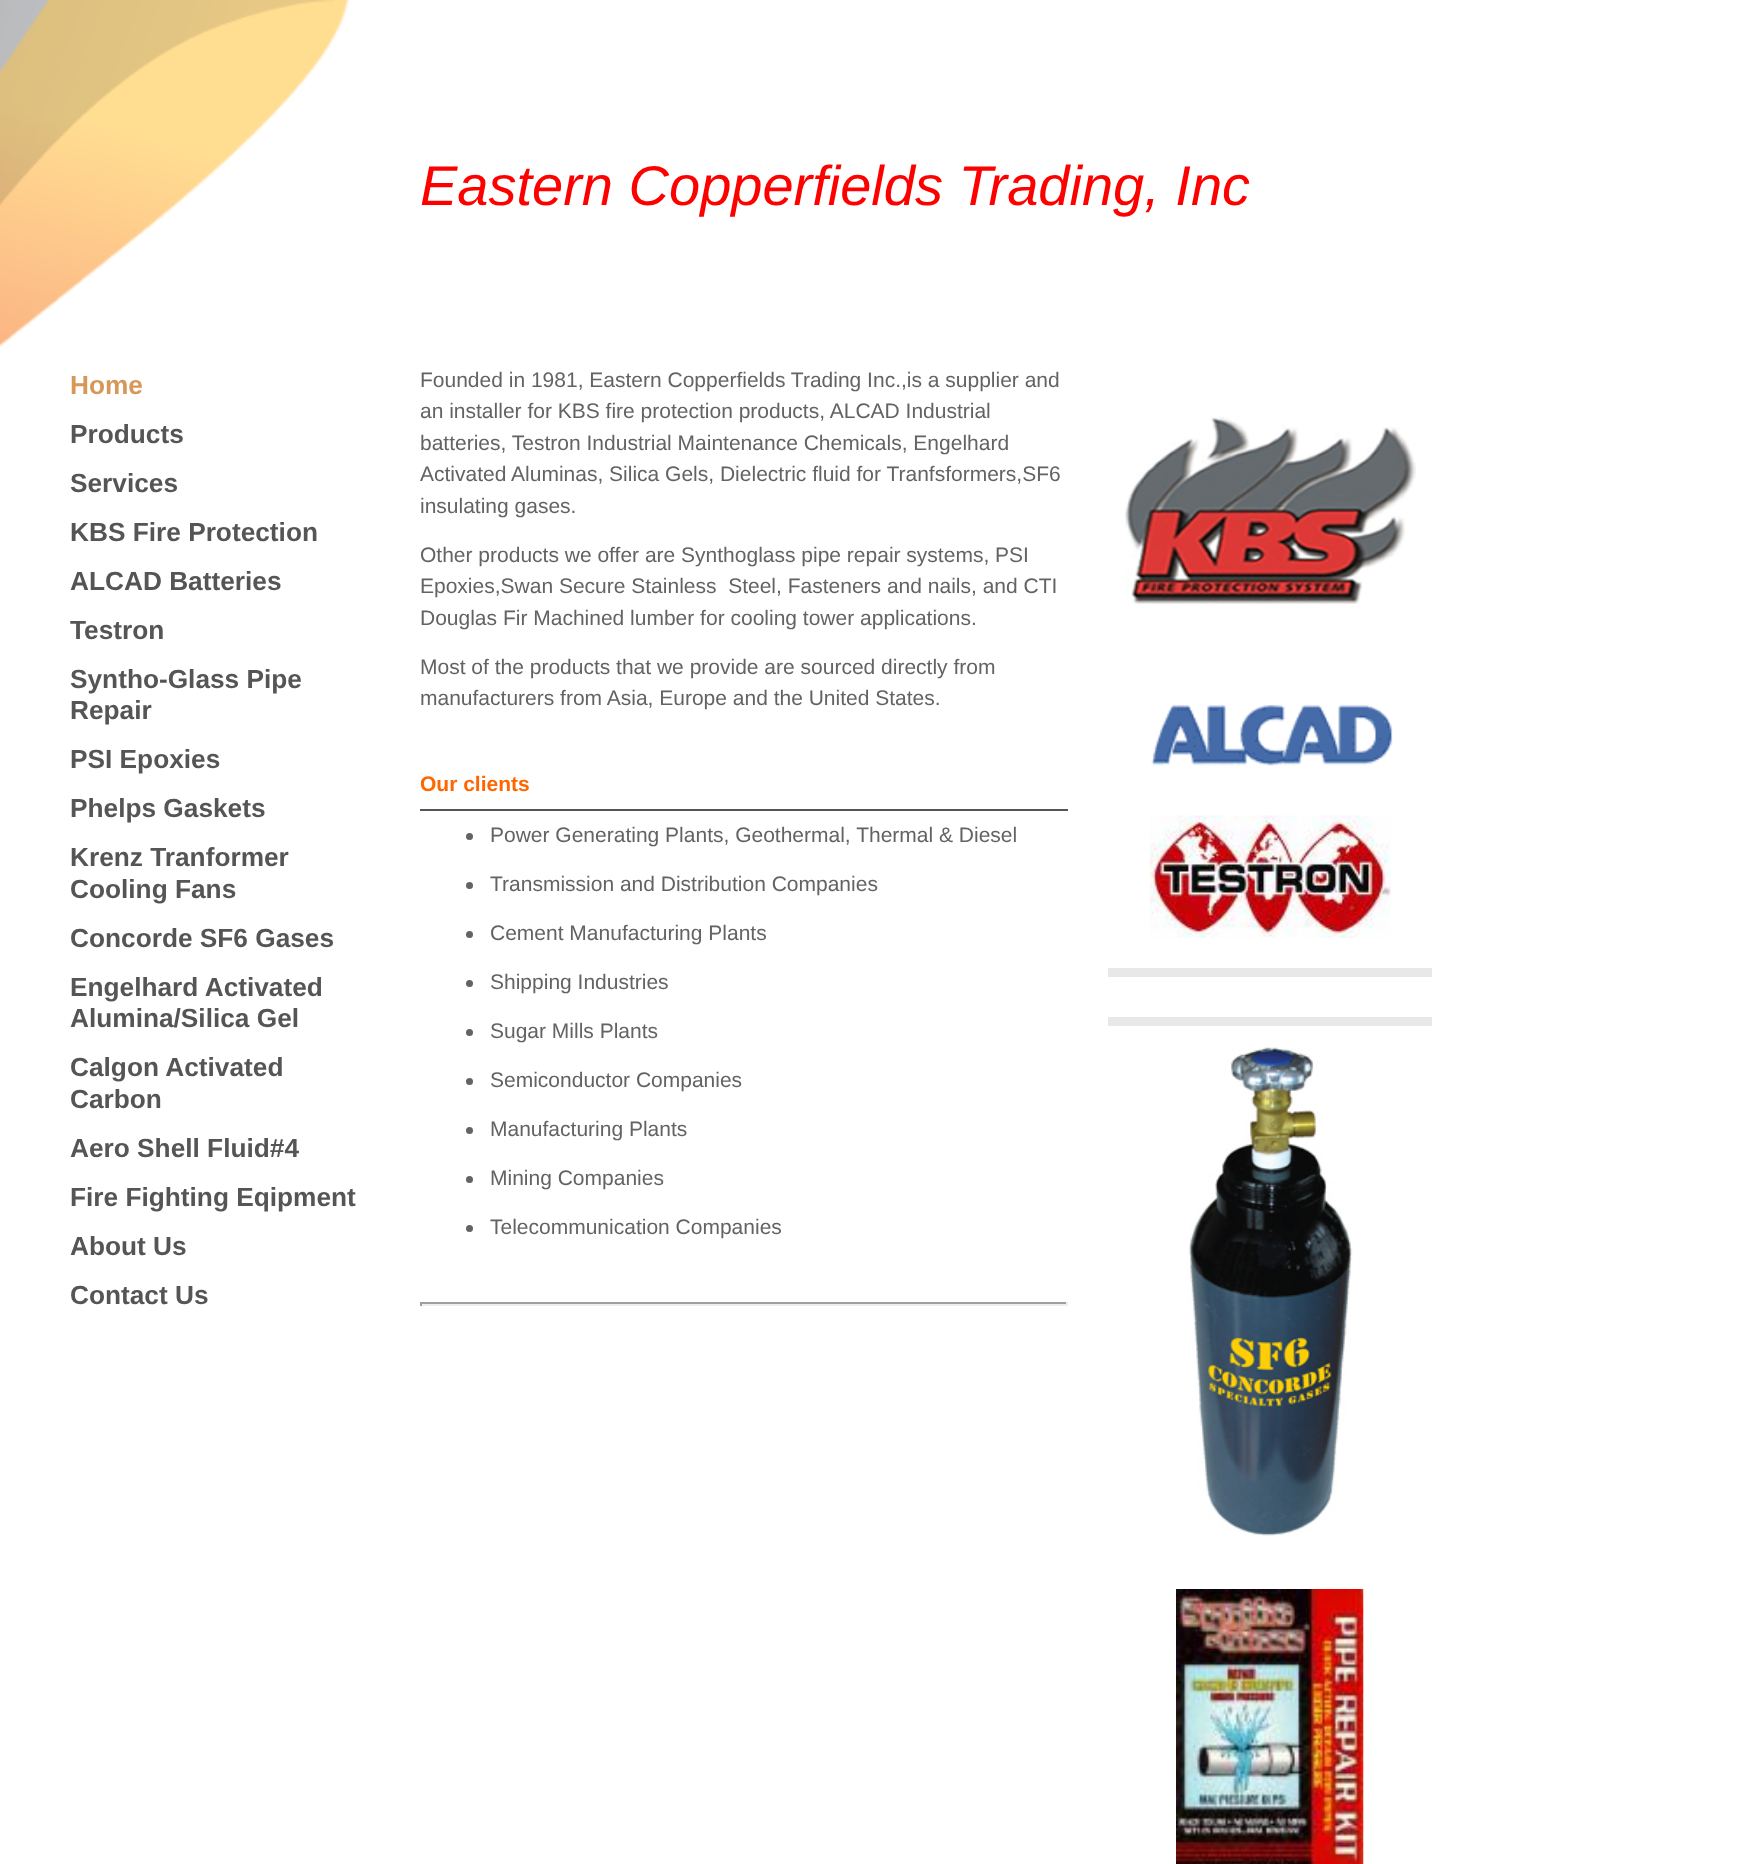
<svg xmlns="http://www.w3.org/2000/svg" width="1744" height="1864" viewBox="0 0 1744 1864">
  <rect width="100%" height="100%" fill="rgb(255,255,255)"/>
  <image x="0" y="0" width="349" height="347" href="pic1.png"/>
  <text x="420" y="205" font-family="Liberation Sans" font-size="56" font-style="italic" fill="rgb(255,0,0)">Eastern Copperfields Trading, Inc</text>
  <text x="70" y="394" font-family="Liberation Sans" font-size="26.25" font-weight="bold" fill="rgb(213,152,87)">Home</text>
  <g font-family="Liberation Sans" font-size="26.25" font-weight="bold" fill="rgb(85,85,85)">
    <text>
      <tspan x="70" y="443">Products</tspan>
      <tspan x="70" y="492">Services</tspan>
      <tspan x="70" y="541">KBS Fire Protection</tspan>
      <tspan x="70" y="590">ALCAD Batteries</tspan>
      <tspan x="70" y="639">Testron</tspan>
      <tspan x="70" y="688">Syntho-Glass Pipe</tspan>
      <tspan x="70" y="719">Repair</tspan>
      <tspan x="70" y="768">PSI Epoxies</tspan>
      <tspan x="70" y="817">Phelps Gaskets</tspan>
      <tspan x="70" y="866">Krenz Tranformer</tspan>
      <tspan x="70" y="898">Cooling Fans</tspan>
      <tspan x="70" y="947">Concorde SF6 Gases</tspan>
      <tspan x="70" y="996">Engelhard Activated</tspan>
      <tspan x="70" y="1027">Alumina/Silica Gel</tspan>
      <tspan x="70" y="1076">Calgon Activated</tspan>
      <tspan x="70" y="1108">Carbon</tspan>
      <tspan x="70" y="1157">Aero Shell Fluid#4</tspan>
      <tspan x="70" y="1206">Fire Fighting Eqipment</tspan>
      <tspan x="70" y="1255">About Us</tspan>
      <tspan x="70" y="1304">Contact Us</tspan>
    </text>
  </g>
  <g font-family="Liberation Sans" font-size="21" fill="rgb(99,99,99)">
    <text>
      <tspan x="420" y="387">Founded in 1981, Eastern Copperfields Trading Inc.,is a supplier and</tspan>
      <tspan x="420" y="418">an installer for KBS fire protection products, ALCAD Industrial</tspan>
      <tspan x="420" y="450">batteries, Testron Industrial Maintenance Chemicals, Engelhard</tspan>
      <tspan x="420" y="481">Activated Aluminas, Silica Gels, Dielectric fluid for Tranfsformers,SF6</tspan>
      <tspan x="420" y="513">insulating gases.</tspan>
    </text>
    <text xml:space="preserve"><tspan x="420" y="562">Other products we offer are Synthoglass pipe repair systems, PSI</tspan><tspan x="420" y="593">Epoxies,Swan Secure Stainless  Steel, Fasteners and nails, and CTI</tspan><tspan x="420" y="625">Douglas Fir Machined lumber for cooling tower applications.</tspan></text>
    <text>
      <tspan x="420" y="674">Most of the products that we provide are sourced directly from</tspan>
      <tspan x="420" y="705">manufacturers from Asia, Europe and the United States.</tspan>
    </text>
  </g>
  <rect x="1108" y="968" width="324" height="58" fill="rgb(232,232,232)"/>
  <image x="1125" y="416" width="291" height="188" href="pic2.png"/>
  <image x="1151" y="704" width="242" height="62" href="pic3.png"/>
  <image x="1149" y="815" width="243" height="123" href="pic4.png"/>
  <rect x="1108" y="977" width="324" height="40" fill="rgb(255,255,255)"/>
  <image x="1186" y="1047" width="167" height="489" href="pic5.png"/>
  <image x="1176" y="1589" width="188" height="275" href="pic6.png"/>
  <rect x="420" y="809" width="648" height="2" fill="rgb(85,85,85)"/>
  <text x="420" y="791" font-family="Liberation Sans" font-size="21" font-weight="bold" fill="rgb(255,102,0)">Our clients</text>
  <circle cx="469.5" cy="836.5" r="3.5" fill="rgb(99,99,99)"/>
  <text x="490" y="842" font-family="Liberation Sans" font-size="21" fill="rgb(99,99,99)">Power Generating Plants, Geothermal, Thermal &amp; Diesel</text>
  <circle cx="469.5" cy="885.5" r="3.5" fill="rgb(99,99,99)"/>
  <text x="490" y="891" font-family="Liberation Sans" font-size="21" fill="rgb(99,99,99)">Transmission and Distribution Companies</text>
  <circle cx="469.5" cy="934.5" r="3.5" fill="rgb(99,99,99)"/>
  <text x="490" y="940" font-family="Liberation Sans" font-size="21" fill="rgb(99,99,99)">Cement Manufacturing Plants</text>
  <circle cx="469.5" cy="983.5" r="3.5" fill="rgb(99,99,99)"/>
  <text x="490" y="989" font-family="Liberation Sans" font-size="21" fill="rgb(99,99,99)">Shipping Industries</text>
  <circle cx="469.5" cy="1032.5" r="3.5" fill="rgb(99,99,99)"/>
  <text x="490" y="1038" font-family="Liberation Sans" font-size="21" fill="rgb(99,99,99)">Sugar Mills Plants</text>
  <circle cx="469.5" cy="1081.5" r="3.5" fill="rgb(99,99,99)"/>
  <text x="490" y="1087" font-family="Liberation Sans" font-size="21" fill="rgb(99,99,99)">Semiconductor Companies</text>
  <circle cx="469.5" cy="1130.5" r="3.5" fill="rgb(99,99,99)"/>
  <text x="490" y="1136" font-family="Liberation Sans" font-size="21" fill="rgb(99,99,99)">Manufacturing Plants</text>
  <circle cx="469.5" cy="1179.5" r="3.5" fill="rgb(99,99,99)"/>
  <text x="490" y="1185" font-family="Liberation Sans" font-size="21" fill="rgb(99,99,99)">Mining Companies</text>
  <circle cx="469.5" cy="1228.5" r="3.5" fill="rgb(99,99,99)"/>
  <text x="490" y="1234" font-family="Liberation Sans" font-size="21" fill="rgb(99,99,99)">Telecommunication Companies</text>
  <rect x="420" y="1302" width="648" height="2" fill="rgb(159,159,159)"/>
  <rect x="1066" y="1302" width="2" height="4" fill="rgb(238,238,238)"/>
  <rect x="420" y="1304" width="648" height="2" fill="rgb(238,238,238)"/>
  <rect x="420" y="1302" width="2" height="4" fill="rgb(159,159,159)"/>
</svg>
